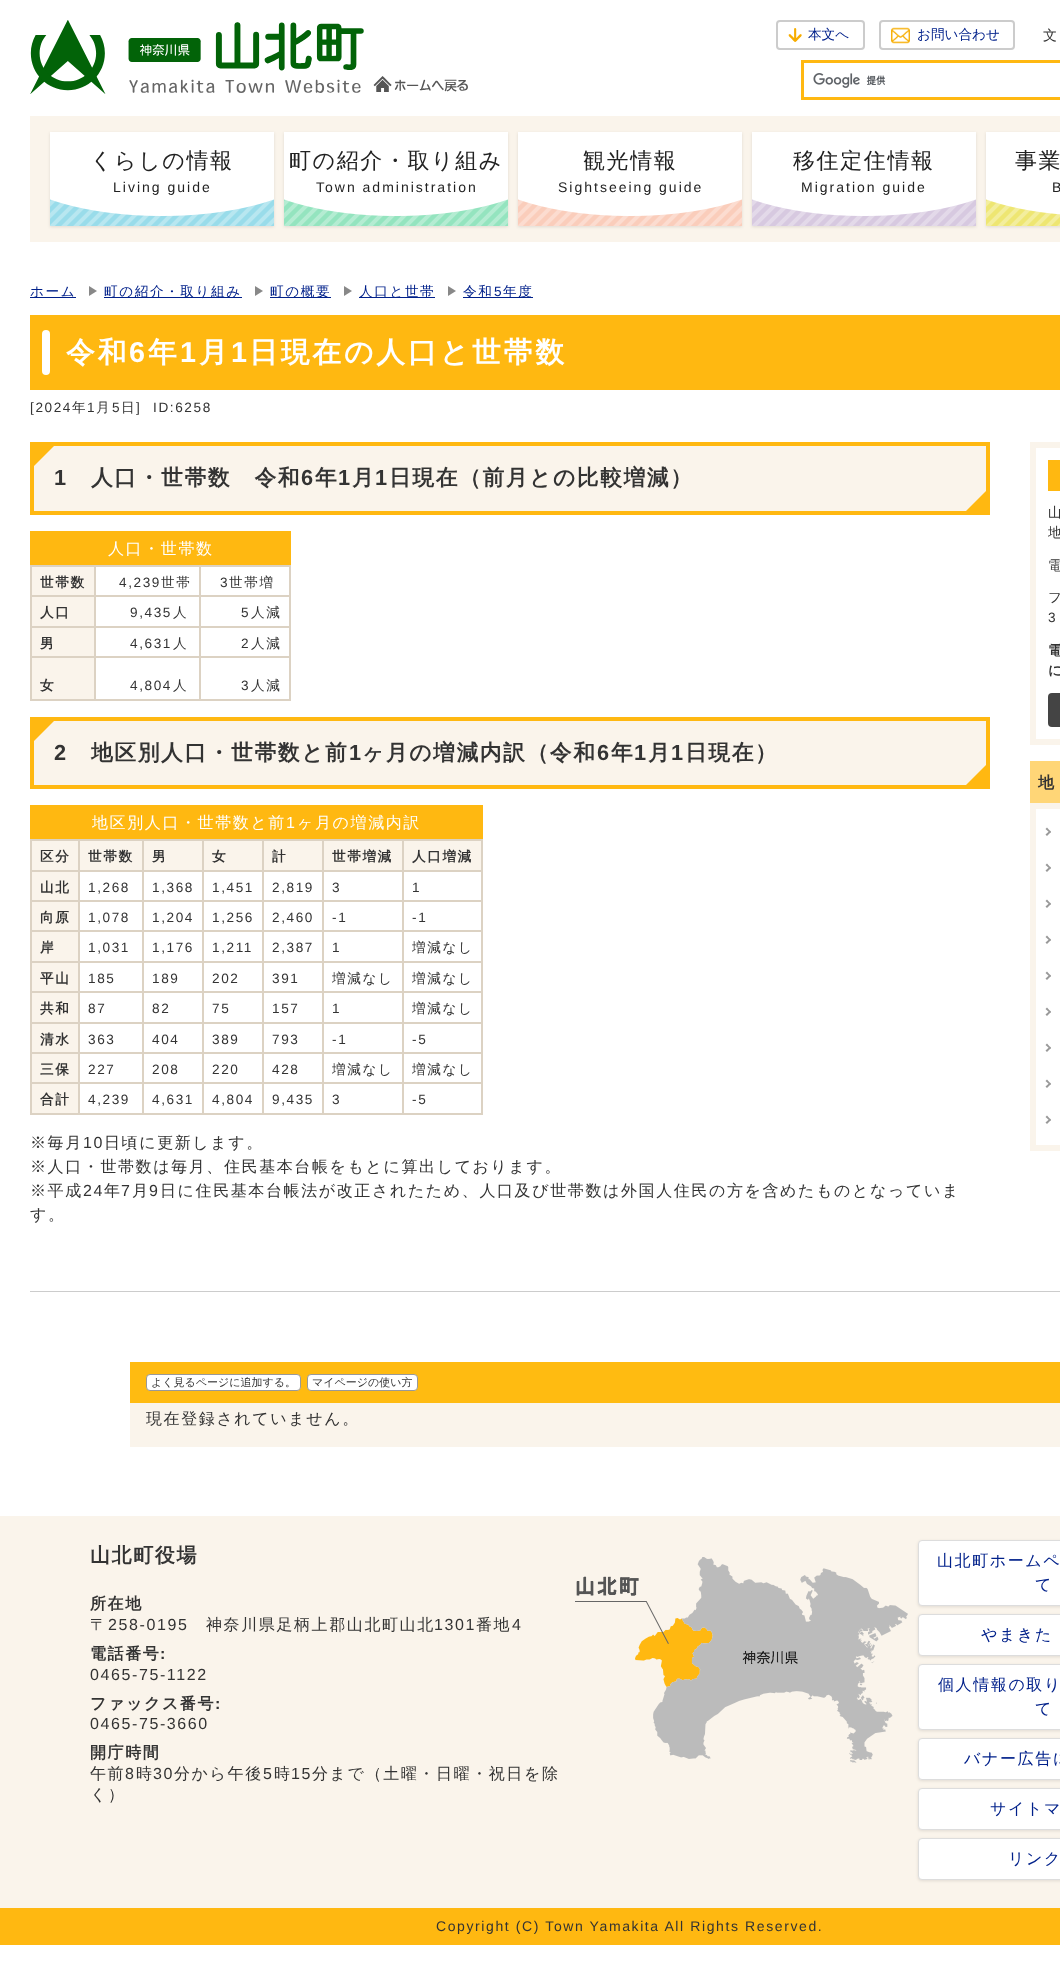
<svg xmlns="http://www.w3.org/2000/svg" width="1060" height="1963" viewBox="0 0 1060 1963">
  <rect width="100%" height="100%" fill="rgb(255,255,255)"/>
  <image x="30" y="20" width="438" height="74" href="pic1.png"/>
  <image x="788" y="28" width="14" height="14" href="pic2.png"/>
  <rect x="777" y="21" width="87" height="28" rx="3" fill="none" stroke="rgb(204,204,204)" stroke-width="2"/>
  <text x="808" y="39" font-family="WenQuanYi Zen Hei" font-size="13.6" font-weight="500" fill="rgb(0,32,138)">本文へ</text>
  <image x="891" y="27" width="19" height="17" href="pic3.png"/>
  <rect x="880" y="21" width="134" height="28" rx="3" fill="none" stroke="rgb(204,204,204)" stroke-width="2"/>
  <text x="917" y="39" font-family="WenQuanYi Zen Hei" font-size="13.6" font-weight="500" fill="rgb(0,32,138)">お問い合わせ</text>
  <text x="1043" y="40" font-family="WenQuanYi Zen Hei" font-size="14" font-weight="500" letter-spacing="1.6" fill="rgb(51,51,51)">文</text>
  <image x="813" y="73" width="73" height="15" href="pic4.png"/>
  <rect x="801" y="60" width="259" height="3" fill="rgb(255,184,17)"/>
  <rect x="801" y="97" width="259" height="3" fill="rgb(255,184,17)"/>
  <rect x="801" y="60" width="3" height="40" fill="rgb(255,184,17)"/>
  <rect x="30" y="116" width="1030" height="126" fill="rgb(250,244,235)"/>
  <rect x="50" y="133" width="224" height="94" fill="rgba(0,0,0,0.1)" filter="blur(1.5px)"/>
  <rect x="50" y="132" width="224" height="67" fill="rgb(255,255,255)"/>
  <image x="50" y="199" width="224" height="27" href="pic5.png"/>
  <text x="90" y="168" font-family="WenQuanYi Zen Hei" font-size="22" font-weight="500" letter-spacing="1.6" fill="rgb(34,34,34)">くらしの情報</text>
  <text x="113" y="192" font-family="Liberation Sans" font-size="14" letter-spacing="2" fill="rgb(34,34,34)">Living guide</text>
  <rect x="284" y="133" width="224" height="94" fill="rgba(0,0,0,0.1)" filter="blur(1.5px)"/>
  <rect x="284" y="132" width="224" height="67" fill="rgb(255,255,255)"/>
  <image x="284" y="199" width="224" height="27" href="pic6.png"/>
  <text x="289" y="168" font-family="WenQuanYi Zen Hei" font-size="22" font-weight="500" letter-spacing="1.6" fill="rgb(34,34,34)">町の紹介・取り組み</text>
  <text x="316" y="192" font-family="Liberation Sans" font-size="14" letter-spacing="2" fill="rgb(34,34,34)">Town administration</text>
  <rect x="518" y="133" width="224" height="94" fill="rgba(0,0,0,0.1)" filter="blur(1.5px)"/>
  <rect x="518" y="132" width="224" height="67" fill="rgb(255,255,255)"/>
  <image x="518" y="199" width="224" height="27" href="pic7.png"/>
  <text x="583" y="168" font-family="WenQuanYi Zen Hei" font-size="22" font-weight="500" letter-spacing="1.6" fill="rgb(34,34,34)">観光情報</text>
  <text x="558" y="192" font-family="Liberation Sans" font-size="14" letter-spacing="2" fill="rgb(34,34,34)">Sightseeing guide</text>
  <rect x="752" y="133" width="224" height="94" fill="rgba(0,0,0,0.1)" filter="blur(1.5px)"/>
  <rect x="752" y="132" width="224" height="67" fill="rgb(255,255,255)"/>
  <image x="752" y="199" width="224" height="27" href="pic8.png"/>
  <text x="793" y="168" font-family="WenQuanYi Zen Hei" font-size="22" font-weight="500" letter-spacing="1.6" fill="rgb(34,34,34)">移住定住情報</text>
  <text x="801" y="192" font-family="Liberation Sans" font-size="14" letter-spacing="2" fill="rgb(34,34,34)">Migration guide</text>
  <rect x="986" y="133" width="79" height="94" fill="rgba(0,0,0,0.1)" filter="blur(1.5px)"/>
  <rect x="986" y="132" width="74" height="67" fill="rgb(255,255,255)"/>
  <image x="986" y="199" width="74" height="27" href="pic9.png"/>
  <text x="1015" y="168" font-family="WenQuanYi Zen Hei" font-size="22" font-weight="500" letter-spacing="1.6" fill="rgb(34,34,34)">事業</text>
  <text x="1052" y="192" font-family="Liberation Sans" font-size="14" letter-spacing="2" fill="rgb(34,34,34)">B</text>
  <rect x="30" y="297" width="46" height="1" fill="rgb(0,32,138)"/>
  <text x="30" y="296" font-family="WenQuanYi Zen Hei" font-size="13.6" font-weight="500" letter-spacing="1.6" fill="rgb(0,32,138)">ホーム</text>
  <path d="M89 296V286L97 291Z" fill="rgb(136,136,136)"/>
  <rect x="104" y="297" width="138" height="1" fill="rgb(0,32,138)"/>
  <text x="104" y="296" font-family="WenQuanYi Zen Hei" font-size="13.6" font-weight="500" letter-spacing="1.6" fill="rgb(0,32,138)">町の紹介・取り組み</text>
  <path d="M255 296V286L263 291Z" fill="rgb(136,136,136)"/>
  <rect x="270" y="297" width="61" height="1" fill="rgb(0,32,138)"/>
  <text x="270" y="296" font-family="WenQuanYi Zen Hei" font-size="13.6" font-weight="500" letter-spacing="1.6" fill="rgb(0,32,138)">町の概要</text>
  <path d="M344 296V286L352 291Z" fill="rgb(136,136,136)"/>
  <rect x="359" y="297" width="76" height="1" fill="rgb(0,32,138)"/>
  <text x="359" y="296" font-family="WenQuanYi Zen Hei" font-size="13.6" font-weight="500" letter-spacing="1.6" fill="rgb(0,32,138)">人口と世帯</text>
  <path d="M448 296V286L456 291Z" fill="rgb(136,136,136)"/>
  <rect x="463" y="297" width="70" height="1" fill="rgb(0,32,138)"/>
  <text x="463" y="296" font-family="WenQuanYi Zen Hei" font-size="13.6" font-weight="500" letter-spacing="1.6" fill="rgb(0,32,138)">令和</text>
  <text x="494" y="296" font-family="Liberation Sans" font-size="13.6" letter-spacing="1.6" fill="rgb(0,32,138)">5</text>
  <text x="503" y="296" font-family="WenQuanYi Zen Hei" font-size="13.6" font-weight="500" letter-spacing="1.6" fill="rgb(0,32,138)">年度</text>
  <rect x="30" y="315" width="1030" height="75" fill="rgb(255,184,17)"/>
  <rect x="42" y="330" width="8" height="45" rx="4" fill="rgb(255,255,255)"/>
  <text x="66" y="362" font-family="WenQuanYi Zen Hei" font-size="28.75" font-weight="bold" letter-spacing="2.9" fill="rgb(255,255,255)">令和</text>
  <text x="129" y="362" font-family="Liberation Sans" font-size="28.75" font-weight="bold" letter-spacing="2.9" fill="rgb(255,255,255)">6</text>
  <text x="148" y="362" font-family="WenQuanYi Zen Hei" font-size="28.75" font-weight="bold" letter-spacing="2.9" fill="rgb(255,255,255)">年</text>
  <text x="180" y="362" font-family="Liberation Sans" font-size="28.75" font-weight="bold" letter-spacing="2.9" fill="rgb(255,255,255)">1</text>
  <text x="199" y="362" font-family="WenQuanYi Zen Hei" font-size="28.75" font-weight="bold" letter-spacing="2.9" fill="rgb(255,255,255)">月</text>
  <text x="231" y="362" font-family="Liberation Sans" font-size="28.75" font-weight="bold" letter-spacing="2.9" fill="rgb(255,255,255)">1</text>
  <text x="249" y="362" font-family="WenQuanYi Zen Hei" font-size="28.75" font-weight="bold" letter-spacing="2.9" fill="rgb(255,255,255)">日現在の人口と世帯数</text>
  <text x="30" y="412" font-family="Liberation Sans" font-size="13.6" letter-spacing="1.6" fill="rgb(51,51,51)">[2024</text>
  <text x="72" y="412" font-family="WenQuanYi Zen Hei" font-size="13.6" font-weight="500" letter-spacing="1.6" fill="rgb(51,51,51)">年</text>
  <text x="87" y="412" font-family="Liberation Sans" font-size="13.6" letter-spacing="1.6" fill="rgb(51,51,51)">1</text>
  <text x="96" y="412" font-family="WenQuanYi Zen Hei" font-size="13.6" font-weight="500" letter-spacing="1.6" fill="rgb(51,51,51)">月</text>
  <text x="112" y="412" font-family="Liberation Sans" font-size="13.6" letter-spacing="1.6" fill="rgb(51,51,51)">5</text>
  <text x="121" y="412" font-family="WenQuanYi Zen Hei" font-size="13.6" font-weight="500" letter-spacing="1.6" fill="rgb(51,51,51)">日</text>
  <g font-family="Liberation Sans" font-size="13.6" letter-spacing="1.6" fill="rgb(51,51,51)">
    <text x="136" y="412">]</text>
    <text x="153" y="412">ID:6258</text>
  </g>
  <rect x="32" y="444" width="956" height="69" fill="rgb(250,244,235)" stroke="rgb(255,184,17)" stroke-width="4"/>
  <path d="M34 466V446H54Z" fill="rgb(255,184,17)"/>
  <text x="54" y="485" font-family="Liberation Sans" font-size="21.75" font-weight="bold" letter-spacing="1.6" fill="rgb(51,51,51)">1</text>
  <text x="91" y="485" font-family="WenQuanYi Zen Hei" font-size="21.75" font-weight="bold" letter-spacing="1.6" fill="rgb(51,51,51)">人口・世帯数　令和</text>
  <text x="301" y="485" font-family="Liberation Sans" font-size="21.75" font-weight="bold" letter-spacing="1.6" fill="rgb(51,51,51)">6</text>
  <text x="315" y="485" font-family="WenQuanYi Zen Hei" font-size="21.75" font-weight="bold" letter-spacing="1.6" fill="rgb(51,51,51)">年</text>
  <text x="338" y="485" font-family="Liberation Sans" font-size="21.75" font-weight="bold" letter-spacing="1.6" fill="rgb(51,51,51)">1</text>
  <text x="352" y="485" font-family="WenQuanYi Zen Hei" font-size="21.75" font-weight="bold" letter-spacing="1.6" fill="rgb(51,51,51)">月</text>
  <text x="375" y="485" font-family="Liberation Sans" font-size="21.75" font-weight="bold" letter-spacing="1.6" fill="rgb(51,51,51)">1</text>
  <text x="389" y="485" font-family="WenQuanYi Zen Hei" font-size="21.75" font-weight="bold" letter-spacing="1.6" fill="rgb(51,51,51)">日現在（前月との比較増減）</text>
  <path d="M986 491V511H966Z" fill="rgb(255,184,17)"/>
  <rect x="30" y="531" width="261" height="34" fill="rgb(255,184,17)"/>
  <text x="108" y="554" font-family="WenQuanYi Zen Hei" font-size="16" font-weight="500" letter-spacing="1.6" fill="rgb(255,255,255)">人口・世帯数</text>
  <rect x="32" y="567" width="62" height="28" fill="rgb(250,244,235)"/>
  <rect x="199" y="565" width="92" height="2" fill="rgb(220,210,195)"/>
  <rect x="199" y="595" width="92" height="2" fill="rgb(220,210,195)"/>
  <rect x="199" y="626" width="92" height="2" fill="rgb(220,210,195)"/>
  <rect x="199" y="656" width="92" height="2" fill="rgb(220,210,195)"/>
  <rect x="289" y="656" width="2" height="45" fill="rgb(220,210,195)"/>
  <rect x="199" y="699" width="92" height="2" fill="rgb(220,210,195)"/>
  <rect x="199" y="656" width="2" height="45" fill="rgb(220,210,195)"/>
  <rect x="94" y="656" width="107" height="2" fill="rgb(220,210,195)"/>
  <rect x="199" y="626" width="2" height="32" fill="rgb(220,210,195)"/>
  <rect x="94" y="626" width="107" height="2" fill="rgb(220,210,195)"/>
  <rect x="199" y="595" width="2" height="33" fill="rgb(220,210,195)"/>
  <rect x="94" y="595" width="107" height="2" fill="rgb(220,210,195)"/>
  <rect x="199" y="565" width="2" height="32" fill="rgb(220,210,195)"/>
  <rect x="94" y="565" width="107" height="2" fill="rgb(220,210,195)"/>
  <rect x="94" y="699" width="107" height="2" fill="rgb(220,210,195)"/>
  <rect x="94" y="656" width="2" height="45" fill="rgb(220,210,195)"/>
  <rect x="30" y="656" width="66" height="2" fill="rgb(220,210,195)"/>
  <rect x="94" y="626" width="2" height="32" fill="rgb(220,210,195)"/>
  <rect x="30" y="626" width="66" height="2" fill="rgb(220,210,195)"/>
  <rect x="94" y="595" width="2" height="33" fill="rgb(220,210,195)"/>
  <rect x="30" y="595" width="66" height="2" fill="rgb(220,210,195)"/>
  <rect x="94" y="565" width="2" height="32" fill="rgb(220,210,195)"/>
  <rect x="30" y="565" width="66" height="2" fill="rgb(220,210,195)"/>
  <rect x="30" y="699" width="66" height="2" fill="rgb(220,210,195)"/>
  <rect x="30" y="656" width="2" height="45" fill="rgb(220,210,195)"/>
  <rect x="30" y="626" width="2" height="32" fill="rgb(220,210,195)"/>
  <rect x="30" y="595" width="2" height="33" fill="rgb(220,210,195)"/>
  <rect x="30" y="565" width="2" height="32" fill="rgb(220,210,195)"/>
  <text x="40" y="587" font-family="WenQuanYi Zen Hei" font-size="13.6" font-weight="bold" letter-spacing="1.6" fill="rgb(51,51,51)">世帯数</text>
  <text x="119" y="587" font-family="Liberation Sans" font-size="13.6" letter-spacing="1.6" fill="rgb(51,51,51)">4,239</text>
  <text x="161" y="587" font-family="WenQuanYi Zen Hei" font-size="13.6" font-weight="500" letter-spacing="1.6" fill="rgb(51,51,51)">世帯</text>
  <rect x="289" y="626" width="2" height="32" fill="rgb(220,210,195)"/>
  <rect x="289" y="595" width="2" height="33" fill="rgb(220,210,195)"/>
  <rect x="289" y="565" width="2" height="32" fill="rgb(220,210,195)"/>
  <text x="220" y="587" font-family="Liberation Sans" font-size="13.6" letter-spacing="1.6" fill="rgb(51,51,51)">3</text>
  <text x="229" y="587" font-family="WenQuanYi Zen Hei" font-size="13.6" font-weight="500" letter-spacing="1.6" fill="rgb(51,51,51)">世帯増</text>
  <rect x="32" y="597" width="62" height="29" fill="rgb(250,244,235)"/>
  <text x="40" y="617" font-family="WenQuanYi Zen Hei" font-size="13.6" font-weight="bold" letter-spacing="1.6" fill="rgb(51,51,51)">人口</text>
  <text x="130" y="617" font-family="Liberation Sans" font-size="13.6" letter-spacing="1.6" fill="rgb(51,51,51)">9,435</text>
  <text x="173" y="617" font-family="WenQuanYi Zen Hei" font-size="13.6" font-weight="500" letter-spacing="1.6" fill="rgb(51,51,51)">人</text>
  <text x="241" y="617" font-family="Liberation Sans" font-size="13.6" letter-spacing="1.6" fill="rgb(51,51,51)">5</text>
  <text x="251" y="617" font-family="WenQuanYi Zen Hei" font-size="13.6" font-weight="500" letter-spacing="1.6" fill="rgb(51,51,51)">人減</text>
  <rect x="32" y="628" width="62" height="28" fill="rgb(250,244,235)"/>
  <text x="40" y="648" font-family="WenQuanYi Zen Hei" font-size="13.6" font-weight="bold" letter-spacing="1.6" fill="rgb(51,51,51)">男</text>
  <text x="130" y="648" font-family="Liberation Sans" font-size="13.6" letter-spacing="1.6" fill="rgb(51,51,51)">4,631</text>
  <text x="173" y="648" font-family="WenQuanYi Zen Hei" font-size="13.6" font-weight="500" letter-spacing="1.6" fill="rgb(51,51,51)">人</text>
  <text x="241" y="648" font-family="Liberation Sans" font-size="13.6" letter-spacing="1.6" fill="rgb(51,51,51)">2</text>
  <text x="251" y="648" font-family="WenQuanYi Zen Hei" font-size="13.6" font-weight="500" letter-spacing="1.6" fill="rgb(51,51,51)">人減</text>
  <rect x="32" y="658" width="62" height="41" fill="rgb(250,244,235)"/>
  <text x="40" y="690" font-family="WenQuanYi Zen Hei" font-size="13.6" font-weight="bold" letter-spacing="1.6" fill="rgb(51,51,51)">女</text>
  <text x="130" y="690" font-family="Liberation Sans" font-size="13.6" letter-spacing="1.6" fill="rgb(51,51,51)">4,804</text>
  <text x="173" y="690" font-family="WenQuanYi Zen Hei" font-size="13.6" font-weight="500" letter-spacing="1.6" fill="rgb(51,51,51)">人</text>
  <text x="241" y="690" font-family="Liberation Sans" font-size="13.6" letter-spacing="1.6" fill="rgb(51,51,51)">3</text>
  <text x="251" y="690" font-family="WenQuanYi Zen Hei" font-size="13.6" font-weight="500" letter-spacing="1.6" fill="rgb(51,51,51)">人減</text>
  <rect x="32" y="719" width="956" height="68" fill="rgb(250,244,235)" stroke="rgb(255,184,17)" stroke-width="4"/>
  <path d="M34 741V721H54Z" fill="rgb(255,184,17)"/>
  <text x="54" y="760" font-family="Liberation Sans" font-size="21.75" font-weight="bold" letter-spacing="1.6" fill="rgb(51,51,51)">2</text>
  <text x="91" y="760" font-family="WenQuanYi Zen Hei" font-size="21.75" font-weight="bold" letter-spacing="1.6" fill="rgb(51,51,51)">地区別人口・世帯数と前</text>
  <text x="349" y="760" font-family="Liberation Sans" font-size="21.75" font-weight="bold" letter-spacing="1.6" fill="rgb(51,51,51)">1</text>
  <text x="362" y="760" font-family="WenQuanYi Zen Hei" font-size="21.75" font-weight="bold" letter-spacing="1.6" fill="rgb(51,51,51)">ヶ月の増減内訳（令和</text>
  <text x="597" y="760" font-family="Liberation Sans" font-size="21.75" font-weight="bold" letter-spacing="1.6" fill="rgb(51,51,51)">6</text>
  <text x="611" y="760" font-family="WenQuanYi Zen Hei" font-size="21.75" font-weight="bold" letter-spacing="1.6" fill="rgb(51,51,51)">年</text>
  <text x="634" y="760" font-family="Liberation Sans" font-size="21.75" font-weight="bold" letter-spacing="1.6" fill="rgb(51,51,51)">1</text>
  <text x="648" y="760" font-family="WenQuanYi Zen Hei" font-size="21.75" font-weight="bold" letter-spacing="1.6" fill="rgb(51,51,51)">月</text>
  <text x="671" y="760" font-family="Liberation Sans" font-size="21.75" font-weight="bold" letter-spacing="1.6" fill="rgb(51,51,51)">1</text>
  <text x="685" y="760" font-family="WenQuanYi Zen Hei" font-size="21.75" font-weight="bold" letter-spacing="1.6" fill="rgb(51,51,51)">日現在）</text>
  <path d="M986 765V785H966Z" fill="rgb(255,184,17)"/>
  <rect x="30" y="805" width="453" height="34" fill="rgb(255,184,17)"/>
  <text x="92" y="828" font-family="WenQuanYi Zen Hei" font-size="16" font-weight="500" letter-spacing="1.6" fill="rgb(255,255,255)">地区別人口・世帯数と前</text>
  <text x="286" y="828" font-family="Liberation Sans" font-size="16" letter-spacing="1.6" fill="rgb(255,255,255)">1</text>
  <text x="297" y="828" font-family="WenQuanYi Zen Hei" font-size="16" font-weight="500" letter-spacing="1.6" fill="rgb(255,255,255)">ヶ月の増減内訳</text>
  <rect x="32" y="841" width="46" height="29" fill="rgb(250,244,235)"/>
  <rect x="402" y="839" width="81" height="2" fill="rgb(220,210,195)"/>
  <rect x="402" y="870" width="81" height="2" fill="rgb(220,210,195)"/>
  <rect x="402" y="900" width="81" height="2" fill="rgb(220,210,195)"/>
  <rect x="402" y="930" width="81" height="2" fill="rgb(220,210,195)"/>
  <rect x="402" y="961" width="81" height="2" fill="rgb(220,210,195)"/>
  <rect x="402" y="991" width="81" height="2" fill="rgb(220,210,195)"/>
  <rect x="402" y="1022" width="81" height="2" fill="rgb(220,210,195)"/>
  <rect x="402" y="1052" width="81" height="2" fill="rgb(220,210,195)"/>
  <rect x="402" y="1082" width="81" height="2" fill="rgb(220,210,195)"/>
  <rect x="481" y="1082" width="2" height="33" fill="rgb(220,210,195)"/>
  <rect x="402" y="1113" width="81" height="2" fill="rgb(220,210,195)"/>
  <rect x="402" y="1082" width="2" height="33" fill="rgb(220,210,195)"/>
  <rect x="322" y="1082" width="82" height="2" fill="rgb(220,210,195)"/>
  <rect x="402" y="1052" width="2" height="32" fill="rgb(220,210,195)"/>
  <rect x="322" y="1052" width="82" height="2" fill="rgb(220,210,195)"/>
  <rect x="402" y="1022" width="2" height="32" fill="rgb(220,210,195)"/>
  <rect x="322" y="1022" width="82" height="2" fill="rgb(220,210,195)"/>
  <rect x="402" y="991" width="2" height="33" fill="rgb(220,210,195)"/>
  <rect x="322" y="991" width="82" height="2" fill="rgb(220,210,195)"/>
  <rect x="402" y="961" width="2" height="32" fill="rgb(220,210,195)"/>
  <rect x="322" y="961" width="82" height="2" fill="rgb(220,210,195)"/>
  <rect x="402" y="930" width="2" height="33" fill="rgb(220,210,195)"/>
  <rect x="322" y="930" width="82" height="2" fill="rgb(220,210,195)"/>
  <rect x="402" y="900" width="2" height="32" fill="rgb(220,210,195)"/>
  <rect x="322" y="900" width="82" height="2" fill="rgb(220,210,195)"/>
  <rect x="402" y="870" width="2" height="32" fill="rgb(220,210,195)"/>
  <rect x="322" y="870" width="82" height="2" fill="rgb(220,210,195)"/>
  <rect x="402" y="839" width="2" height="33" fill="rgb(220,210,195)"/>
  <rect x="322" y="839" width="82" height="2" fill="rgb(220,210,195)"/>
  <rect x="322" y="1113" width="82" height="2" fill="rgb(220,210,195)"/>
  <rect x="322" y="1082" width="2" height="33" fill="rgb(220,210,195)"/>
  <rect x="262" y="1082" width="62" height="2" fill="rgb(220,210,195)"/>
  <rect x="322" y="1052" width="2" height="32" fill="rgb(220,210,195)"/>
  <rect x="262" y="1052" width="62" height="2" fill="rgb(220,210,195)"/>
  <rect x="322" y="1022" width="2" height="32" fill="rgb(220,210,195)"/>
  <rect x="262" y="1022" width="62" height="2" fill="rgb(220,210,195)"/>
  <rect x="322" y="991" width="2" height="33" fill="rgb(220,210,195)"/>
  <rect x="262" y="991" width="62" height="2" fill="rgb(220,210,195)"/>
  <rect x="322" y="961" width="2" height="32" fill="rgb(220,210,195)"/>
  <rect x="262" y="961" width="62" height="2" fill="rgb(220,210,195)"/>
  <rect x="322" y="930" width="2" height="33" fill="rgb(220,210,195)"/>
  <rect x="262" y="930" width="62" height="2" fill="rgb(220,210,195)"/>
  <rect x="322" y="900" width="2" height="32" fill="rgb(220,210,195)"/>
  <rect x="262" y="900" width="62" height="2" fill="rgb(220,210,195)"/>
  <rect x="322" y="870" width="2" height="32" fill="rgb(220,210,195)"/>
  <rect x="262" y="870" width="62" height="2" fill="rgb(220,210,195)"/>
  <rect x="322" y="839" width="2" height="33" fill="rgb(220,210,195)"/>
  <rect x="262" y="839" width="62" height="2" fill="rgb(220,210,195)"/>
  <rect x="262" y="1113" width="62" height="2" fill="rgb(220,210,195)"/>
  <rect x="262" y="1082" width="2" height="33" fill="rgb(220,210,195)"/>
  <rect x="202" y="1082" width="62" height="2" fill="rgb(220,210,195)"/>
  <rect x="262" y="1052" width="2" height="32" fill="rgb(220,210,195)"/>
  <rect x="202" y="1052" width="62" height="2" fill="rgb(220,210,195)"/>
  <rect x="262" y="1022" width="2" height="32" fill="rgb(220,210,195)"/>
  <rect x="202" y="1022" width="62" height="2" fill="rgb(220,210,195)"/>
  <rect x="262" y="991" width="2" height="33" fill="rgb(220,210,195)"/>
  <rect x="202" y="991" width="62" height="2" fill="rgb(220,210,195)"/>
  <rect x="262" y="961" width="2" height="32" fill="rgb(220,210,195)"/>
  <rect x="202" y="961" width="62" height="2" fill="rgb(220,210,195)"/>
  <rect x="262" y="930" width="2" height="33" fill="rgb(220,210,195)"/>
  <rect x="202" y="930" width="62" height="2" fill="rgb(220,210,195)"/>
  <rect x="262" y="900" width="2" height="32" fill="rgb(220,210,195)"/>
  <rect x="202" y="900" width="62" height="2" fill="rgb(220,210,195)"/>
  <rect x="262" y="870" width="2" height="32" fill="rgb(220,210,195)"/>
  <rect x="202" y="870" width="62" height="2" fill="rgb(220,210,195)"/>
  <rect x="262" y="839" width="2" height="33" fill="rgb(220,210,195)"/>
  <rect x="202" y="839" width="62" height="2" fill="rgb(220,210,195)"/>
  <rect x="202" y="1113" width="62" height="2" fill="rgb(220,210,195)"/>
  <rect x="202" y="1082" width="2" height="33" fill="rgb(220,210,195)"/>
  <rect x="142" y="1082" width="62" height="2" fill="rgb(220,210,195)"/>
  <rect x="202" y="1052" width="2" height="32" fill="rgb(220,210,195)"/>
  <rect x="142" y="1052" width="62" height="2" fill="rgb(220,210,195)"/>
  <rect x="202" y="1022" width="2" height="32" fill="rgb(220,210,195)"/>
  <rect x="142" y="1022" width="62" height="2" fill="rgb(220,210,195)"/>
  <rect x="202" y="991" width="2" height="33" fill="rgb(220,210,195)"/>
  <rect x="142" y="991" width="62" height="2" fill="rgb(220,210,195)"/>
  <rect x="202" y="961" width="2" height="32" fill="rgb(220,210,195)"/>
  <rect x="142" y="961" width="62" height="2" fill="rgb(220,210,195)"/>
  <rect x="202" y="930" width="2" height="33" fill="rgb(220,210,195)"/>
  <rect x="142" y="930" width="62" height="2" fill="rgb(220,210,195)"/>
  <rect x="202" y="900" width="2" height="32" fill="rgb(220,210,195)"/>
  <rect x="142" y="900" width="62" height="2" fill="rgb(220,210,195)"/>
  <rect x="202" y="870" width="2" height="32" fill="rgb(220,210,195)"/>
  <rect x="142" y="870" width="62" height="2" fill="rgb(220,210,195)"/>
  <rect x="202" y="839" width="2" height="33" fill="rgb(220,210,195)"/>
  <rect x="142" y="839" width="62" height="2" fill="rgb(220,210,195)"/>
  <rect x="142" y="1113" width="62" height="2" fill="rgb(220,210,195)"/>
  <rect x="142" y="1082" width="2" height="33" fill="rgb(220,210,195)"/>
  <rect x="78" y="1082" width="66" height="2" fill="rgb(220,210,195)"/>
  <rect x="142" y="1052" width="2" height="32" fill="rgb(220,210,195)"/>
  <rect x="78" y="1052" width="66" height="2" fill="rgb(220,210,195)"/>
  <rect x="142" y="1022" width="2" height="32" fill="rgb(220,210,195)"/>
  <rect x="78" y="1022" width="66" height="2" fill="rgb(220,210,195)"/>
  <rect x="142" y="991" width="2" height="33" fill="rgb(220,210,195)"/>
  <rect x="78" y="991" width="66" height="2" fill="rgb(220,210,195)"/>
  <rect x="142" y="961" width="2" height="32" fill="rgb(220,210,195)"/>
  <rect x="78" y="961" width="66" height="2" fill="rgb(220,210,195)"/>
  <rect x="142" y="930" width="2" height="33" fill="rgb(220,210,195)"/>
  <rect x="78" y="930" width="66" height="2" fill="rgb(220,210,195)"/>
  <rect x="142" y="900" width="2" height="32" fill="rgb(220,210,195)"/>
  <rect x="78" y="900" width="66" height="2" fill="rgb(220,210,195)"/>
  <rect x="142" y="870" width="2" height="32" fill="rgb(220,210,195)"/>
  <rect x="78" y="870" width="66" height="2" fill="rgb(220,210,195)"/>
  <rect x="142" y="839" width="2" height="33" fill="rgb(220,210,195)"/>
  <rect x="78" y="839" width="66" height="2" fill="rgb(220,210,195)"/>
  <rect x="78" y="1113" width="66" height="2" fill="rgb(220,210,195)"/>
  <rect x="78" y="1082" width="2" height="33" fill="rgb(220,210,195)"/>
  <rect x="30" y="1082" width="50" height="2" fill="rgb(220,210,195)"/>
  <rect x="78" y="1052" width="2" height="32" fill="rgb(220,210,195)"/>
  <rect x="30" y="1052" width="50" height="2" fill="rgb(220,210,195)"/>
  <rect x="78" y="1022" width="2" height="32" fill="rgb(220,210,195)"/>
  <rect x="30" y="1022" width="50" height="2" fill="rgb(220,210,195)"/>
  <rect x="78" y="991" width="2" height="33" fill="rgb(220,210,195)"/>
  <rect x="30" y="991" width="50" height="2" fill="rgb(220,210,195)"/>
  <rect x="78" y="961" width="2" height="32" fill="rgb(220,210,195)"/>
  <rect x="30" y="961" width="50" height="2" fill="rgb(220,210,195)"/>
  <rect x="78" y="930" width="2" height="33" fill="rgb(220,210,195)"/>
  <rect x="30" y="930" width="50" height="2" fill="rgb(220,210,195)"/>
  <rect x="78" y="900" width="2" height="32" fill="rgb(220,210,195)"/>
  <rect x="30" y="900" width="50" height="2" fill="rgb(220,210,195)"/>
  <rect x="78" y="870" width="2" height="32" fill="rgb(220,210,195)"/>
  <rect x="30" y="870" width="50" height="2" fill="rgb(220,210,195)"/>
  <rect x="78" y="839" width="2" height="33" fill="rgb(220,210,195)"/>
  <rect x="30" y="839" width="50" height="2" fill="rgb(220,210,195)"/>
  <rect x="30" y="1113" width="50" height="2" fill="rgb(220,210,195)"/>
  <rect x="30" y="1082" width="2" height="33" fill="rgb(220,210,195)"/>
  <rect x="30" y="1052" width="2" height="32" fill="rgb(220,210,195)"/>
  <rect x="30" y="1022" width="2" height="32" fill="rgb(220,210,195)"/>
  <rect x="30" y="991" width="2" height="33" fill="rgb(220,210,195)"/>
  <rect x="30" y="961" width="2" height="32" fill="rgb(220,210,195)"/>
  <rect x="30" y="930" width="2" height="33" fill="rgb(220,210,195)"/>
  <rect x="30" y="900" width="2" height="32" fill="rgb(220,210,195)"/>
  <rect x="30" y="870" width="2" height="32" fill="rgb(220,210,195)"/>
  <rect x="30" y="839" width="2" height="33" fill="rgb(220,210,195)"/>
  <text x="40" y="861" font-family="WenQuanYi Zen Hei" font-size="13.6" font-weight="bold" letter-spacing="1.6" fill="rgb(51,51,51)">区分</text>
  <rect x="80" y="841" width="62" height="29" fill="rgb(250,244,235)"/>
  <text x="88" y="861" font-family="WenQuanYi Zen Hei" font-size="13.6" font-weight="bold" letter-spacing="1.6" fill="rgb(51,51,51)">世帯数</text>
  <rect x="144" y="841" width="58" height="29" fill="rgb(250,244,235)"/>
  <text x="152" y="861" font-family="WenQuanYi Zen Hei" font-size="13.6" font-weight="bold" letter-spacing="1.6" fill="rgb(51,51,51)">男</text>
  <rect x="204" y="841" width="58" height="29" fill="rgb(250,244,235)"/>
  <text x="212" y="861" font-family="WenQuanYi Zen Hei" font-size="13.6" font-weight="bold" letter-spacing="1.6" fill="rgb(51,51,51)">女</text>
  <rect x="264" y="841" width="58" height="29" fill="rgb(250,244,235)"/>
  <text x="272" y="861" font-family="WenQuanYi Zen Hei" font-size="13.6" font-weight="bold" letter-spacing="1.6" fill="rgb(51,51,51)">計</text>
  <rect x="324" y="841" width="78" height="29" fill="rgb(250,244,235)"/>
  <text x="332" y="861" font-family="WenQuanYi Zen Hei" font-size="13.6" font-weight="bold" letter-spacing="1.6" fill="rgb(51,51,51)">世帯増減</text>
  <rect x="404" y="841" width="77" height="29" fill="rgb(250,244,235)"/>
  <rect x="481" y="1052" width="2" height="32" fill="rgb(220,210,195)"/>
  <rect x="481" y="1022" width="2" height="32" fill="rgb(220,210,195)"/>
  <rect x="481" y="991" width="2" height="33" fill="rgb(220,210,195)"/>
  <rect x="481" y="961" width="2" height="32" fill="rgb(220,210,195)"/>
  <rect x="481" y="930" width="2" height="33" fill="rgb(220,210,195)"/>
  <rect x="481" y="900" width="2" height="32" fill="rgb(220,210,195)"/>
  <rect x="481" y="870" width="2" height="32" fill="rgb(220,210,195)"/>
  <rect x="481" y="839" width="2" height="33" fill="rgb(220,210,195)"/>
  <text x="412" y="861" font-family="WenQuanYi Zen Hei" font-size="13.6" font-weight="bold" letter-spacing="1.6" fill="rgb(51,51,51)">人口増減</text>
  <rect x="32" y="872" width="46" height="28" fill="rgb(250,244,235)"/>
  <text x="40" y="892" font-family="WenQuanYi Zen Hei" font-size="13.6" font-weight="bold" letter-spacing="1.6" fill="rgb(51,51,51)">山北</text>
  <g font-family="Liberation Sans" font-size="13.6" letter-spacing="1.6" fill="rgb(51,51,51)">
    <text x="88" y="892">1,268</text>
    <text x="152" y="892">1,368</text>
    <text x="212" y="892">1,451</text>
    <text x="272" y="892">2,819</text>
    <text x="332" y="892">3</text>
    <text x="412" y="892">1</text>
  </g>
  <rect x="32" y="902" width="46" height="28" fill="rgb(250,244,235)"/>
  <text x="40" y="922" font-family="WenQuanYi Zen Hei" font-size="13.6" font-weight="bold" letter-spacing="1.6" fill="rgb(51,51,51)">向原</text>
  <g font-family="Liberation Sans" font-size="13.6" letter-spacing="1.6" fill="rgb(51,51,51)">
    <text x="88" y="922">1,078</text>
    <text x="152" y="922">1,204</text>
    <text x="212" y="922">1,256</text>
    <text x="272" y="922">2,460</text>
    <text x="332" y="922">-1</text>
    <text x="412" y="922">-1</text>
  </g>
  <rect x="32" y="932" width="46" height="29" fill="rgb(250,244,235)"/>
  <text x="40" y="952" font-family="WenQuanYi Zen Hei" font-size="13.6" font-weight="bold" letter-spacing="1.6" fill="rgb(51,51,51)">岸</text>
  <g font-family="Liberation Sans" font-size="13.6" letter-spacing="1.6" fill="rgb(51,51,51)">
    <text x="88" y="952">1,031</text>
    <text x="152" y="952">1,176</text>
    <text x="212" y="952">1,211</text>
    <text x="272" y="952">2,387</text>
    <text x="332" y="952">1</text>
  </g>
  <text x="412" y="952" font-family="WenQuanYi Zen Hei" font-size="13.6" font-weight="500" letter-spacing="1.6" fill="rgb(51,51,51)">増減なし</text>
  <rect x="32" y="963" width="46" height="28" fill="rgb(250,244,235)"/>
  <text x="40" y="983" font-family="WenQuanYi Zen Hei" font-size="13.6" font-weight="bold" letter-spacing="1.6" fill="rgb(51,51,51)">平山</text>
  <g font-family="Liberation Sans" font-size="13.6" letter-spacing="1.6" fill="rgb(51,51,51)">
    <text x="88" y="983">185</text>
    <text x="152" y="983">189</text>
    <text x="212" y="983">202</text>
    <text x="272" y="983">391</text>
  </g>
  <g font-family="WenQuanYi Zen Hei" font-size="13.6" font-weight="500" letter-spacing="1.6" fill="rgb(51,51,51)">
    <text x="332" y="983">増減なし</text>
    <text x="412" y="983">増減なし</text>
  </g>
  <rect x="32" y="993" width="46" height="29" fill="rgb(250,244,235)"/>
  <text x="40" y="1013" font-family="WenQuanYi Zen Hei" font-size="13.6" font-weight="bold" letter-spacing="1.6" fill="rgb(51,51,51)">共和</text>
  <g font-family="Liberation Sans" font-size="13.6" letter-spacing="1.6" fill="rgb(51,51,51)">
    <text x="88" y="1013">87</text>
    <text x="152" y="1013">82</text>
    <text x="212" y="1013">75</text>
    <text x="272" y="1013">157</text>
    <text x="332" y="1013">1</text>
  </g>
  <text x="412" y="1013" font-family="WenQuanYi Zen Hei" font-size="13.6" font-weight="500" letter-spacing="1.6" fill="rgb(51,51,51)">増減なし</text>
  <rect x="32" y="1024" width="46" height="28" fill="rgb(250,244,235)"/>
  <text x="40" y="1044" font-family="WenQuanYi Zen Hei" font-size="13.6" font-weight="bold" letter-spacing="1.6" fill="rgb(51,51,51)">清水</text>
  <g font-family="Liberation Sans" font-size="13.6" letter-spacing="1.6" fill="rgb(51,51,51)">
    <text x="88" y="1044">363</text>
    <text x="152" y="1044">404</text>
    <text x="212" y="1044">389</text>
    <text x="272" y="1044">793</text>
    <text x="332" y="1044">-1</text>
    <text x="412" y="1044">-5</text>
  </g>
  <rect x="32" y="1054" width="46" height="28" fill="rgb(250,244,235)"/>
  <text x="40" y="1074" font-family="WenQuanYi Zen Hei" font-size="13.6" font-weight="bold" letter-spacing="1.6" fill="rgb(51,51,51)">三保</text>
  <g font-family="Liberation Sans" font-size="13.6" letter-spacing="1.6" fill="rgb(51,51,51)">
    <text x="88" y="1074">227</text>
    <text x="152" y="1074">208</text>
    <text x="212" y="1074">220</text>
    <text x="272" y="1074">428</text>
  </g>
  <g font-family="WenQuanYi Zen Hei" font-size="13.6" font-weight="500" letter-spacing="1.6" fill="rgb(51,51,51)">
    <text x="332" y="1074">増減なし</text>
    <text x="412" y="1074">増減なし</text>
  </g>
  <rect x="32" y="1084" width="46" height="29" fill="rgb(250,244,235)"/>
  <text x="40" y="1104" font-family="WenQuanYi Zen Hei" font-size="13.6" font-weight="bold" letter-spacing="1.6" fill="rgb(51,51,51)">合計</text>
  <g font-family="Liberation Sans" font-size="13.6" letter-spacing="1.6" fill="rgb(51,51,51)">
    <text x="88" y="1104">4,239</text>
    <text x="152" y="1104">4,631</text>
    <text x="212" y="1104">4,804</text>
    <text x="272" y="1104">9,435</text>
    <text x="332" y="1104">3</text>
    <text x="412" y="1104">-5</text>
  </g>
  <text x="30" y="1148" font-family="WenQuanYi Zen Hei" font-size="16" font-weight="500" letter-spacing="1.6" fill="rgb(51,51,51)">※毎月</text>
  <text x="83" y="1148" font-family="Liberation Sans" font-size="16" letter-spacing="1.6" fill="rgb(51,51,51)">10</text>
  <g font-family="WenQuanYi Zen Hei" font-size="16" font-weight="500" letter-spacing="1.6" fill="rgb(51,51,51)">
    <text x="104" y="1148">日頃に更新します。</text>
    <text>
      <tspan x="30" y="1172">※人口・世帯数は毎月、住民基本台帳をもとに算出しております。</tspan>
      <tspan x="30" y="1196">※平成</tspan>
    </text>
  </g>
  <text x="83" y="1196" font-family="Liberation Sans" font-size="16" letter-spacing="1.6" fill="rgb(51,51,51)">24</text>
  <text x="104" y="1196" font-family="WenQuanYi Zen Hei" font-size="16" font-weight="500" letter-spacing="1.6" fill="rgb(51,51,51)">年</text>
  <text x="121" y="1196" font-family="Liberation Sans" font-size="16" letter-spacing="1.6" fill="rgb(51,51,51)">7</text>
  <text x="132" y="1196" font-family="WenQuanYi Zen Hei" font-size="16" font-weight="500" letter-spacing="1.6" fill="rgb(51,51,51)">月</text>
  <text x="149" y="1196" font-family="Liberation Sans" font-size="16" letter-spacing="1.6" fill="rgb(51,51,51)">9</text>
  <g font-family="WenQuanYi Zen Hei" font-size="16" font-weight="500" letter-spacing="1.6" fill="rgb(51,51,51)">
    <text x="160" y="1196">日に住民基本台帳法が改正されたため、人口及び世帯数は外国人住民の方を含めたものとなっていま</text>
    <text x="30" y="1220">す。</text>
  </g>
  <rect x="1033" y="445" width="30" height="297" fill="none" stroke="rgb(250,244,235)" stroke-width="6"/>
  <rect x="1048" y="460" width="12" height="31" fill="rgb(255,184,17)"/>
  <g font-family="WenQuanYi Zen Hei" font-size="13.6" font-weight="500" letter-spacing="1.6" fill="rgb(51,51,51)">
    <text>
      <tspan x="1048" y="517">山</tspan>
      <tspan x="1048" y="537">地</tspan>
    </text>
    <text x="1048" y="570">電</text>
    <text x="1048" y="602">フ</text>
  </g>
  <text x="1048" y="622" font-family="Liberation Sans" font-size="13.6" letter-spacing="1.6" fill="rgb(51,51,51)">3</text>
  <g font-family="WenQuanYi Zen Hei" font-size="13.6" font-weight="bold" letter-spacing="1.6" fill="rgb(51,51,51)">
    <text>
      <tspan x="1048" y="655">電</tspan>
      <tspan x="1048" y="675">に</tspan>
    </text>
  </g>
  <rect x="1048" y="693" width="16" height="34" rx="4" fill="rgb(68,68,68)"/>
  <rect x="1030" y="761" width="30" height="42" fill="rgb(255,214,119)"/>
  <text x="1038" y="788" font-family="WenQuanYi Zen Hei" font-size="16" font-weight="bold" letter-spacing="1.6" fill="rgb(51,51,51)">地</text>
  <rect x="1033" y="806" width="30" height="342" fill="none" stroke="rgb(250,244,235)" stroke-width="6"/>
  <path d="M1045.5 829L1047 827.5L1051 832L1050 833Z" fill="rgb(153,153,153)"/>
  <path d="M1045.5 834.5L1050 830.5L1051 832L1047 836ZM1045.5 865L1047 863.5L1051 868L1050 869Z" fill="rgb(153,153,153)"/>
  <path d="M1045.5 870.5L1050 866.5L1051 868L1047 872ZM1045.5 901L1047 899.5L1051 904L1050 905Z" fill="rgb(153,153,153)"/>
  <path d="M1045.5 906.5L1050 902.5L1051 904L1047 908ZM1045.5 937L1047 935.5L1051 940L1050 941Z" fill="rgb(153,153,153)"/>
  <path d="M1045.5 942.5L1050 938.5L1051 940L1047 944ZM1045.5 973L1047 971.5L1051 976L1050 977Z" fill="rgb(153,153,153)"/>
  <path d="M1045.5 978.5L1050 974.5L1051 976L1047 980ZM1045.5 1009L1047 1007.5L1051 1012L1050 1013Z" fill="rgb(153,153,153)"/>
  <path d="M1045.5 1014.5L1050 1010.5L1051 1012L1047 1016ZM1045.5 1045L1047 1043.5L1051 1048L1050 1049Z" fill="rgb(153,153,153)"/>
  <path d="M1045.5 1050.5L1050 1046.5L1051 1048L1047 1052ZM1045.5 1081L1047 1079.5L1051 1084L1050 1085Z" fill="rgb(153,153,153)"/>
  <path d="M1045.5 1086.5L1050 1082.5L1051 1084L1047 1088ZM1045.5 1117L1047 1115.5L1051 1120L1050 1121Z" fill="rgb(153,153,153)"/>
  <path d="M1045.5 1122.5L1050 1118.5L1051 1120L1047 1124Z" fill="rgb(153,153,153)"/>
  <rect x="30" y="1291" width="1030" height="1" fill="rgb(204,204,204)"/>
  <rect x="130" y="1362" width="930" height="41" fill="rgb(255,187,17)"/>
  <rect x="146.5" y="1374.5" width="154" height="16" rx="3.5" fill="rgb(255,255,255)" stroke="rgb(153,153,153)"/>
  <text x="151" y="1386" font-family="WenQuanYi Zen Hei" font-size="11" font-weight="500" fill="rgb(51,51,51)">よく見るページに追加する。</text>
  <rect x="307.5" y="1374.5" width="110" height="16" rx="3.5" fill="rgb(255,255,255)" stroke="rgb(153,153,153)"/>
  <text x="312" y="1386" font-family="WenQuanYi Zen Hei" font-size="11" font-weight="500" fill="rgb(51,51,51)">マイページの使い方</text>
  <rect x="130" y="1403" width="930" height="44" fill="rgb(250,244,235)"/>
  <text x="146" y="1424" font-family="WenQuanYi Zen Hei" font-size="16" font-weight="500" letter-spacing="1.6" fill="rgb(51,51,51)">現在登録されていません。</text>
  <rect x="0" y="1516" width="1060" height="392" fill="rgb(250,244,235)"/>
  <text x="90" y="1562" font-family="WenQuanYi Zen Hei" font-size="20" font-weight="bold" letter-spacing="1.6" fill="rgb(51,51,51)">山北町役場</text>
  <text x="90" y="1609" font-family="WenQuanYi Zen Hei" font-size="16" font-weight="bold" letter-spacing="1.6" fill="rgb(51,51,51)">所在地</text>
  <text x="90" y="1630" font-family="WenQuanYi Zen Hei" font-size="16" font-weight="500" letter-spacing="1.6" fill="rgb(51,51,51)">〒</text>
  <text x="108" y="1630" font-family="Liberation Sans" font-size="16" letter-spacing="1.6" fill="rgb(51,51,51)">258-0195</text>
  <text x="206" y="1630" font-family="WenQuanYi Zen Hei" font-size="16" font-weight="500" letter-spacing="1.6" fill="rgb(51,51,51)">神奈川県足柄上郡山北町山北</text>
  <text x="434" y="1630" font-family="Liberation Sans" font-size="16" letter-spacing="1.6" fill="rgb(51,51,51)">1301</text>
  <text x="476" y="1630" font-family="WenQuanYi Zen Hei" font-size="16" font-weight="500" letter-spacing="1.6" fill="rgb(51,51,51)">番地</text>
  <text x="512" y="1630" font-family="Liberation Sans" font-size="16" letter-spacing="1.6" fill="rgb(51,51,51)">4</text>
  <text x="90" y="1659" font-family="WenQuanYi Zen Hei" font-size="16" font-weight="bold" letter-spacing="1.6" fill="rgb(51,51,51)">電話番号</text>
  <text x="160" y="1659" font-family="Liberation Sans" font-size="16" font-weight="bold" letter-spacing="1.6" fill="rgb(51,51,51)">:</text>
  <text x="90" y="1680" font-family="Liberation Sans" font-size="16" letter-spacing="1.6" fill="rgb(51,51,51)">0465-75-1122</text>
  <text x="90" y="1709" font-family="WenQuanYi Zen Hei" font-size="16" font-weight="bold" letter-spacing="1.6" fill="rgb(51,51,51)">ファックス番号</text>
  <text x="215" y="1709" font-family="Liberation Sans" font-size="16" font-weight="bold" letter-spacing="1.6" fill="rgb(51,51,51)">:</text>
  <text x="90" y="1729" font-family="Liberation Sans" font-size="16" letter-spacing="1.6" fill="rgb(51,51,51)">0465-75-3660</text>
  <text x="90" y="1758" font-family="WenQuanYi Zen Hei" font-size="16" font-weight="bold" letter-spacing="1.6" fill="rgb(51,51,51)">開庁時間</text>
  <text x="90" y="1779" font-family="WenQuanYi Zen Hei" font-size="16" font-weight="500" letter-spacing="1.6" fill="rgb(51,51,51)">午前</text>
  <text x="125" y="1779" font-family="Liberation Sans" font-size="16" letter-spacing="1.6" fill="rgb(51,51,51)">8</text>
  <text x="136" y="1779" font-family="WenQuanYi Zen Hei" font-size="16" font-weight="500" letter-spacing="1.6" fill="rgb(51,51,51)">時</text>
  <text x="153" y="1779" font-family="Liberation Sans" font-size="16" letter-spacing="1.6" fill="rgb(51,51,51)">30</text>
  <text x="174" y="1779" font-family="WenQuanYi Zen Hei" font-size="16" font-weight="500" letter-spacing="1.6" fill="rgb(51,51,51)">分から午後</text>
  <text x="263" y="1779" font-family="Liberation Sans" font-size="16" letter-spacing="1.6" fill="rgb(51,51,51)">5</text>
  <text x="274" y="1779" font-family="WenQuanYi Zen Hei" font-size="16" font-weight="500" letter-spacing="1.6" fill="rgb(51,51,51)">時</text>
  <text x="291" y="1779" font-family="Liberation Sans" font-size="16" letter-spacing="1.6" fill="rgb(51,51,51)">15</text>
  <g font-family="WenQuanYi Zen Hei" font-size="16" font-weight="500" letter-spacing="1.6" fill="rgb(51,51,51)">
    <text x="312" y="1779">分まで（土曜・日曜・祝日を除</text>
    <text x="90" y="1800">く）</text>
  </g>
  <image x="575" y="1557" width="333" height="206" href="pic10.png"/>
  <rect x="918" y="1541" width="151" height="66" rx="4" fill="rgba(0,0,0,0.1)" filter="blur(1.5px)"/>
  <rect x="918.5" y="1540.5" width="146" height="65" rx="3.5" fill="rgb(255,255,255)" stroke="rgb(221,221,221)"/>
  <g font-family="WenQuanYi Zen Hei" font-size="16" font-weight="500" letter-spacing="1.6" fill="rgb(0,32,138)">
    <text x="937" y="1566">山北町ホームペ</text>
    <text x="1035" y="1590">て</text>
  </g>
  <rect x="918" y="1615" width="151" height="42" rx="4" fill="rgba(0,0,0,0.1)" filter="blur(1.5px)"/>
  <rect x="918.5" y="1614.5" width="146" height="41" rx="3.5" fill="rgb(255,255,255)" stroke="rgb(221,221,221)"/>
  <text x="981" y="1640" font-family="WenQuanYi Zen Hei" font-size="16" font-weight="500" letter-spacing="1.6" fill="rgb(0,32,138)">やまきた</text>
  <rect x="918" y="1665" width="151" height="66" rx="4" fill="rgba(0,0,0,0.1)" filter="blur(1.5px)"/>
  <rect x="918.5" y="1664.5" width="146" height="65" rx="3.5" fill="rgb(255,255,255)" stroke="rgb(221,221,221)"/>
  <g font-family="WenQuanYi Zen Hei" font-size="16" font-weight="500" letter-spacing="1.6" fill="rgb(0,32,138)">
    <text x="938" y="1690">個人情報の取り</text>
    <text x="1035" y="1714">て</text>
  </g>
  <rect x="918" y="1739" width="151" height="42" rx="4" fill="rgba(0,0,0,0.1)" filter="blur(1.5px)"/>
  <rect x="918.5" y="1738.5" width="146" height="41" rx="3.5" fill="rgb(255,255,255)" stroke="rgb(221,221,221)"/>
  <text x="964" y="1764" font-family="WenQuanYi Zen Hei" font-size="16" font-weight="500" letter-spacing="1.6" fill="rgb(0,32,138)">バナー広告に</text>
  <rect x="918" y="1789" width="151" height="42" rx="4" fill="rgba(0,0,0,0.1)" filter="blur(1.5px)"/>
  <rect x="918.5" y="1788.5" width="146" height="41" rx="3.5" fill="rgb(255,255,255)" stroke="rgb(221,221,221)"/>
  <text x="990" y="1814" font-family="WenQuanYi Zen Hei" font-size="16" font-weight="500" letter-spacing="1.6" fill="rgb(0,32,138)">サイトマ</text>
  <rect x="918" y="1839" width="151" height="42" rx="4" fill="rgba(0,0,0,0.1)" filter="blur(1.5px)"/>
  <rect x="918.5" y="1838.5" width="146" height="41" rx="3.5" fill="rgb(255,255,255)" stroke="rgb(221,221,221)"/>
  <text x="1008" y="1864" font-family="WenQuanYi Zen Hei" font-size="16" font-weight="500" letter-spacing="1.6" fill="rgb(0,32,138)">リンク</text>
  <rect x="0" y="1908" width="1060" height="37" fill="rgb(255,184,17)"/>
  <text x="436" y="1931" font-family="Liberation Sans" font-size="14" letter-spacing="1.6" fill="rgb(51,51,51)">Copyright (C) Town Yamakita All Rights Reserved.</text>
</svg>
